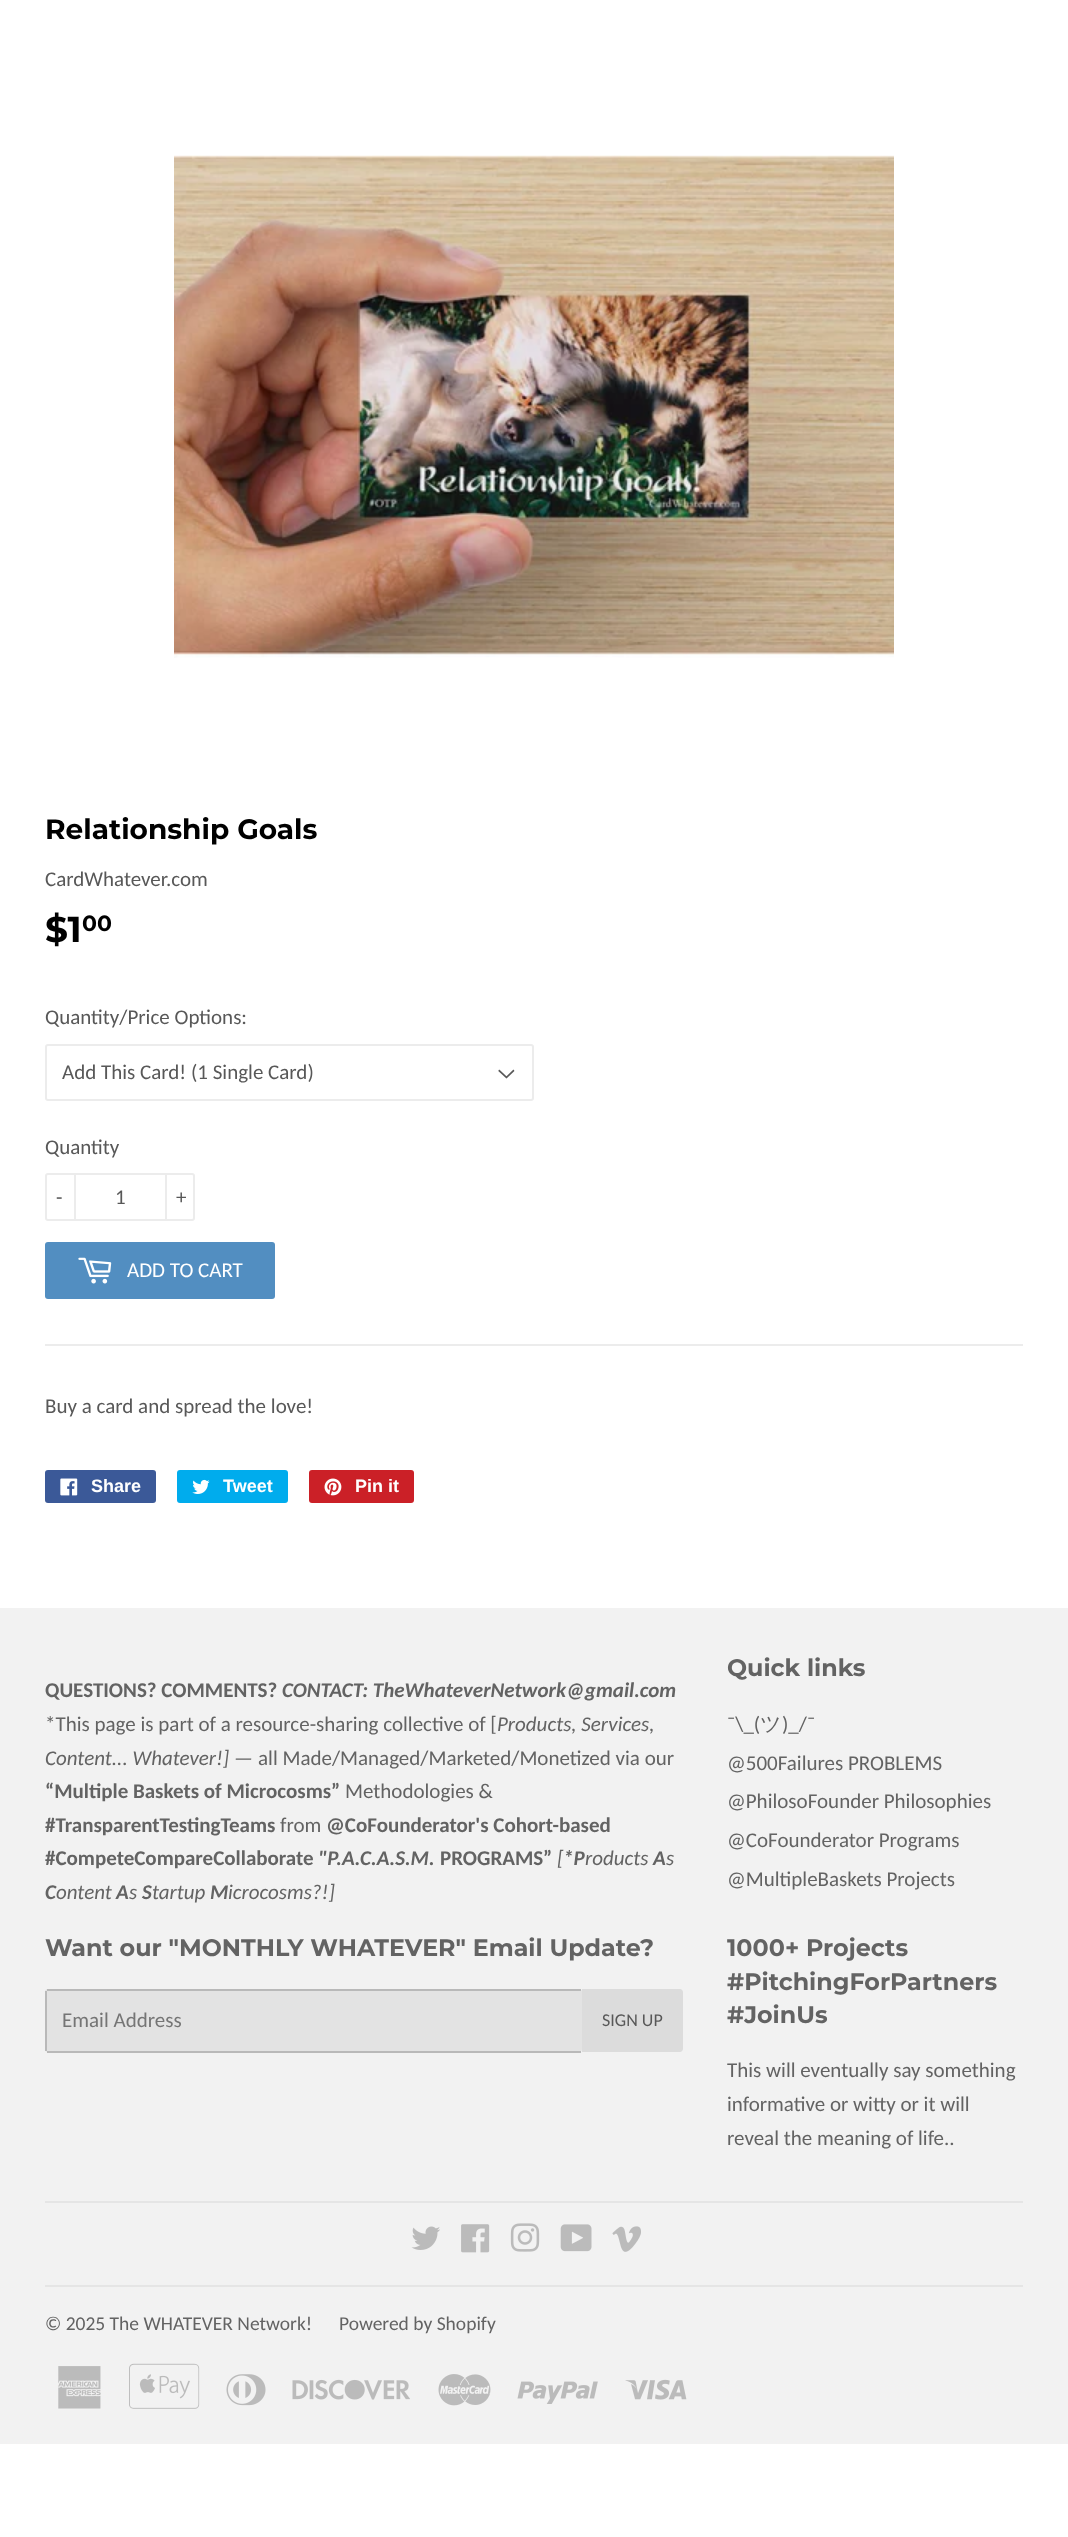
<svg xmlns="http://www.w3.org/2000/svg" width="1068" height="2537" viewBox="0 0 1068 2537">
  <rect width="100%" height="100%" fill="rgb(255,255,255)"/>
  <image x="174" y="155" width="720" height="503" href="pic1.png"/>
  <text x="45" y="839" font-family="Montserrat" font-size="28" font-weight="100" fill="rgb(0,0,0)">Relationship Goals</text>
  <text x="45" y="886" font-family="Carlito" font-size="21" fill="rgb(88,88,88)">CardWhatever.com</text>
  <text x="45" y="942" font-family="Montserrat" font-size="36" font-weight="100" fill="rgb(0,0,0)">$1</text>
  <text x="82" y="931" font-family="Montserrat" font-size="22" font-weight="100" fill="rgb(0,0,0)">00</text>
  <text x="45" y="1024" font-family="Carlito" font-size="21" fill="rgb(88,88,88)">Quantity/Price Options:</text>
  <image x="498" y="1069" width="17" height="10" href="pic2.png"/>
  <rect x="46" y="1045" width="487" height="55" rx="2" fill="none" stroke="rgb(236,236,236)" stroke-width="2"/>
  <g font-family="Carlito" font-size="21" fill="rgb(88,88,88)">
    <text x="62" y="1079">Add This Card! (1 Single Card)</text>
    <text x="45" y="1154">Quantity</text>
  </g>
  <rect x="46" y="1174" width="148" height="46" rx="2" fill="none" stroke="rgb(236,236,236)" stroke-width="2"/>
  <rect x="74" y="1173" width="2" height="48" fill="rgb(236,236,236)"/>
  <g font-family="Carlito" font-size="21" fill="rgb(88,88,88)">
    <text x="56" y="1204">-</text>
    <text x="115" y="1204">1</text>
  </g>
  <rect x="165" y="1173" width="2" height="48" fill="rgb(236,236,236)"/>
  <text x="176" y="1204" font-family="Carlito" font-size="21" fill="rgb(88,88,88)">+</text>
  <rect x="45" y="1242" width="230" height="57" rx="3" fill="rgb(82,142,193)"/>
  <image x="78" y="1257" width="34" height="27" href="pic3.png"/>
  <text x="127" y="1277" font-family="Carlito" font-size="21" fill="rgb(255,255,255)">ADD TO CART</text>
  <rect x="45" y="1344" width="978" height="2" fill="rgb(236,236,236)"/>
  <text x="45" y="1413" font-family="Carlito" font-size="21" fill="rgb(88,88,88)">Buy a card and spread the love!</text>
  <rect x="45" y="1470" width="111" height="33" rx="3" fill="rgb(59,89,152)"/>
  <image x="60" y="1478" width="18" height="18" href="pic4.png"/>
  <text x="91" y="1492" font-family="Liberation Sans" font-size="18" font-weight="bold" fill="rgb(255,255,255)">Share</text>
  <rect x="177" y="1470" width="111" height="33" rx="3" fill="rgb(0,172,237)"/>
  <image x="192" y="1479" width="18" height="15" href="pic5.png"/>
  <text x="223" y="1492" font-family="Liberation Sans" font-size="18" font-weight="bold" fill="rgb(255,255,255)">Tweet</text>
  <rect x="309" y="1470" width="105" height="33" rx="3" fill="rgb(203,32,39)"/>
  <image x="324" y="1478" width="18" height="18" href="pic6.png"/>
  <text x="355" y="1492" font-family="Liberation Sans" font-size="18" font-weight="bold" fill="rgb(255,255,255)">Pin it</text>
  <rect x="0" y="1608" width="1068" height="836" fill="rgb(242,242,242)"/>
  <text x="45" y="1697" font-family="Carlito" font-size="21" font-weight="bold" fill="rgb(99,99,99)">QUESTIONS? COMMENTS?</text>
  <text x="282" y="1697" font-family="Carlito" font-size="21" font-weight="bold" font-style="italic" fill="rgb(99,99,99)">CONTACT: TheWhateverNetwork@gmail.com</text>
  <text x="45" y="1731" font-family="Carlito" font-size="21" fill="rgb(99,99,99)">*This page is part of a resource-sharing collective of [</text>
  <g font-family="Carlito" font-size="21" font-style="italic" fill="rgb(99,99,99)">
    <text x="497" y="1731">Products, Services,</text>
    <text x="45" y="1765">Content... Whatever!] —</text>
  </g>
  <text x="258" y="1765" font-family="Carlito" font-size="21" fill="rgb(99,99,99)">all Made/Managed/Marketed/Monetized via our</text>
  <text x="45" y="1798" font-family="Carlito" font-size="21" font-weight="bold" fill="rgb(99,99,99)">“Multiple Baskets of Microcosms”</text>
  <text x="345" y="1798" font-family="Carlito" font-size="21" fill="rgb(99,99,99)">Methodologies &amp;</text>
  <text x="45" y="1832" font-family="Carlito" font-size="21" font-weight="bold" fill="rgb(99,99,99)">#TransparentTestingTeams</text>
  <text x="280" y="1832" font-family="Carlito" font-size="21" fill="rgb(99,99,99)">from</text>
  <g font-family="Carlito" font-size="21" font-weight="bold" fill="rgb(99,99,99)">
    <text x="326" y="1832">@CoFounderator's Cohort-based</text>
    <text x="45" y="1865">#CompeteCompareCollaborate</text>
  </g>
  <text x="318" y="1865" font-family="Carlito" font-size="21" font-weight="bold" font-style="italic" fill="rgb(99,99,99)">"P.A.C.A.S.M.</text>
  <text x="440" y="1865" font-family="Carlito" font-size="21" font-weight="bold" fill="rgb(99,99,99)">PROGRAMS”</text>
  <text x="557" y="1865" font-family="Carlito" font-size="21" font-style="italic" fill="rgb(99,99,99)">[</text>
  <text x="563" y="1865" font-family="Carlito" font-size="21" font-weight="bold" font-style="italic" fill="rgb(99,99,99)">*P</text>
  <text x="585" y="1865" font-family="Carlito" font-size="21" font-style="italic" fill="rgb(99,99,99)">roducts</text>
  <text x="653" y="1865" font-family="Carlito" font-size="21" font-weight="bold" font-style="italic" fill="rgb(99,99,99)">A</text>
  <text x="666" y="1865" font-family="Carlito" font-size="21" font-style="italic" fill="rgb(99,99,99)">s</text>
  <text x="45" y="1899" font-family="Carlito" font-size="21" font-weight="bold" font-style="italic" fill="rgb(99,99,99)">C</text>
  <text x="56" y="1899" font-family="Carlito" font-size="21" font-style="italic" fill="rgb(99,99,99)">ontent</text>
  <text x="116" y="1899" font-family="Carlito" font-size="21" font-weight="bold" font-style="italic" fill="rgb(99,99,99)">A</text>
  <text x="129" y="1899" font-family="Carlito" font-size="21" font-style="italic" fill="rgb(99,99,99)">s</text>
  <text x="142" y="1899" font-family="Carlito" font-size="21" font-weight="bold" font-style="italic" fill="rgb(99,99,99)">S</text>
  <text x="152" y="1899" font-family="Carlito" font-size="21" font-style="italic" fill="rgb(99,99,99)">tartup</text>
  <text x="210" y="1899" font-family="Carlito" font-size="21" font-weight="bold" font-style="italic" fill="rgb(99,99,99)">M</text>
  <text x="228" y="1899" font-family="Carlito" font-size="21" font-style="italic" fill="rgb(99,99,99)">icrocosms?!]</text>
  <text x="727" y="1676" font-family="Montserrat" font-size="23.8" font-weight="100" fill="rgb(99,99,99)">Quick links</text>
  <text x="727" y="1731" font-family="Carlito" font-size="21" fill="rgb(99,99,99)">¯\_(</text>
  <text x="760" y="1731" font-family="WenQuanYi Zen Hei" font-size="21" font-weight="500" fill="rgb(99,99,99)">ツ</text>
  <g font-family="Carlito" font-size="21" fill="rgb(99,99,99)">
    <text x="782" y="1731">)_/¯</text>
    <text>
      <tspan x="727" y="1770">@500Failures PROBLEMS</tspan>
      <tspan x="727" y="1808">@PhilosoFounder Philosophies</tspan>
      <tspan x="727" y="1847">@CoFounderator Programs</tspan>
      <tspan x="727" y="1886">@MultipleBaskets Projects</tspan>
    </text>
  </g>
  <text x="45" y="1956" font-family="Montserrat" font-size="23.8" font-weight="100" fill="rgb(99,99,99)">Want our "MONTHLY WHATEVER" Email Update?</text>
  <rect x="45" y="1989" width="537" height="63" rx="3" fill="rgb(227,227,227)"/>
  <rect x="47" y="1989" width="534" height="2" fill="rgb(185,185,185)"/>
  <rect x="47" y="2051" width="534" height="2" fill="rgb(185,185,185)"/>
  <rect x="45" y="1991" width="2" height="60" fill="rgb(185,185,185)"/>
  <text x="62" y="2027" font-family="Carlito" font-size="21" fill="rgb(117,117,117)">Email Address</text>
  <path d="M582 1989H680C681.5 1989 683 1990.5 683 1992V2049C683 2050.5 681.5 2052 680 2052H582Z" fill="rgb(220,220,220)"/>
  <text x="602" y="2026" font-family="Carlito" font-size="18" fill="rgb(88,88,88)">SIGN UP</text>
  <g font-family="Montserrat" font-size="23.8" font-weight="100" fill="rgb(99,99,99)">
    <text>
      <tspan x="727" y="1956">1000+ Projects</tspan>
      <tspan x="727" y="1990">#PitchingForPartners</tspan>
      <tspan x="727" y="2023">#JoinUs</tspan>
    </text>
  </g>
  <g font-family="Carlito" font-size="21" fill="rgb(99,99,99)">
    <text>
      <tspan x="727" y="2077">This will eventually say something</tspan>
      <tspan x="727" y="2111">informative or witty or it will</tspan>
      <tspan x="727" y="2145">reveal the meaning of life..</tspan>
    </text>
  </g>
  <rect x="45" y="2201" width="978" height="2" fill="rgb(229,229,229)"/>
  <image x="411" y="2226" width="29" height="24" href="pic7.png"/>
  <image x="461" y="2224" width="29" height="29" href="pic8.png"/>
  <image x="510" y="2223" width="30" height="29" href="pic9.png"/>
  <image x="560" y="2224" width="32" height="28" href="pic10.png"/>
  <image x="612" y="2226" width="29" height="26" href="pic11.png"/>
  <rect x="45" y="2285" width="978" height="2" fill="rgb(229,229,229)"/>
  <g font-family="Carlito" font-size="19.5" fill="rgb(99,99,99)">
    <text x="45" y="2330">© 2025 The WHATEVER Network!</text>
    <text x="339" y="2330">Powered by Shopify</text>
  </g>
  <image x="58" y="2366" width="43" height="43" href="pic12.png"/>
  <image x="129" y="2363" width="71" height="46" href="pic13.png"/>
  <image x="226" y="2374" width="40" height="32" href="pic14.png"/>
  <image x="292" y="2379" width="118" height="21" href="pic15.png"/>
  <image x="438" y="2374" width="53" height="32" href="pic16.png"/>
  <image x="517" y="2381" width="81" height="23" href="pic17.png"/>
  <image x="625" y="2379" width="62" height="21" href="pic18.png"/>
</svg>
